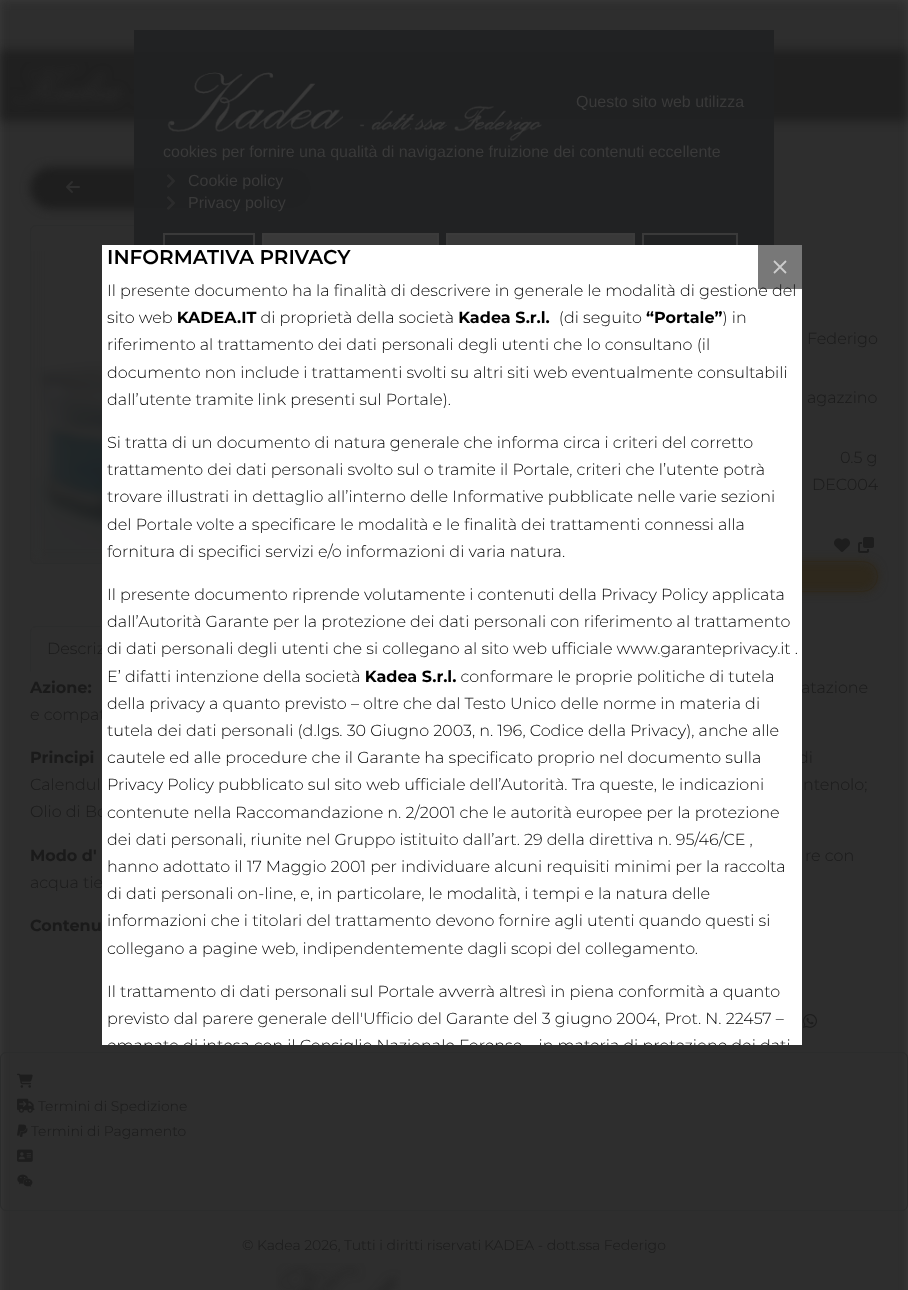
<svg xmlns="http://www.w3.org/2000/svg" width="908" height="1290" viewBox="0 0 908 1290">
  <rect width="100%" height="100%" fill="rgb(59,59,59)"/>
  <rect x="0" y="0" width="908" height="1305" fill="rgb(46,46,46)" filter="blur(5px)"/>
  <rect x="0" y="50" width="908" height="71" fill="rgba(26,26,26,0.69)" filter="blur(5px)"/>
  <image x="10" y="62" width="240" height="50" href="pic5.png"/>
  <rect x="30" y="167" width="282" height="42" rx="21" fill="rgb(30,30,30)" filter="blur(5px)"/>
  <rect x="30.5" y="225.5" width="338" height="338" rx="5.5" fill="none" stroke="rgb(43,44,44)"/>
  <rect x="134" y="30" width="640" height="215" fill="rgba(33,34,35,0.95)"/>
  <image x="167" y="72" width="375" height="70" href="pic1.png"/>
  <g font-family="Liberation Sans" font-size="16" fill="rgb(58,58,58)">
    <text x="576" y="107">Questo sito web utilizza</text>
    <text x="163" y="157">cookies per fornire una qualità di navigazione fruizione dei contenuti eccellente</text>
  </g>
  <image x="166" y="174" width="9" height="14" href="pic2.png"/>
  <text x="188" y="186" font-family="Liberation Sans" font-size="16" fill="rgb(58,58,58)">Cookie policy</text>
  <image x="166" y="196" width="9" height="14" href="pic3.png"/>
  <text x="188" y="208" font-family="Liberation Sans" font-size="16" fill="rgb(58,58,58)">Privacy policy</text>
  <rect x="164" y="234" width="90" height="30" fill="none" stroke="rgb(58,58,58)" stroke-width="2"/>
  <rect x="264" y="235" width="173" height="10" fill="rgba(59,59,59,0.95)"/>
  <rect x="263" y="234" width="175" height="30" fill="none" stroke="rgb(59,59,59)" stroke-width="2"/>
  <rect x="448" y="235" width="185" height="10" fill="rgba(59,59,59,0.95)"/>
  <rect x="447" y="234" width="187" height="30" fill="none" stroke="rgb(59,59,59)" stroke-width="2"/>
  <rect x="643" y="234" width="94" height="30" fill="none" stroke="rgb(58,58,58)" stroke-width="2"/>
  <image x="834" y="538" width="16" height="14" href="pic8.png"/>
  <image x="858" y="537" width="16" height="16" href="pic9.png"/>
  <rect x="689" y="561" width="189" height="31" rx="15.5" fill="rgb(46,40,28)" filter="blur(5px)"/>
  <rect x="689.5" y="561.5" width="188" height="30" rx="15" fill="none" stroke="rgb(46,40,28)"/>
  <path d="M36 626C34 626 33 627 32 628C33 628 34 627 36 627H150C152 627 153 628 154 628C153 627 152 626 150 626Z" fill="rgb(43,44,44)"/>
  <g font-family="Montserrat" font-size="16" font-weight="300" fill="rgb(26,26,26)">
    <text x="47" y="654">Descriz</text>
    <text x="801" y="693">atazione</text>
    <text x="30" y="720">e compat</text>
    <text x="798" y="763">di</text>
    <text x="30" y="817">Olio di Bo</text>
    <text x="30" y="888">acqua tie</text>
  </g>
  <rect x="102" y="245" width="700" height="800" fill="rgb(255,255,255)"/>
  <image x="107" y="249" width="690" height="796" href="pic4.png"/>
  <rect x="758" y="245" width="44" height="44" fill="rgba(30,30,30,0.6)"/>
  <path d="M774 261L786 273M786 261L774 273" fill="none" stroke="rgb(204,204,204)" stroke-width="1.8" stroke-linejoin="round"/>
  <image x="66" y="181" width="14" height="12" href="pic6.png"/>
  <image x="31" y="251" width="71" height="312" href="pic7.png"/>
  <g font-family="Montserrat" font-size="16" font-weight="300" fill="rgb(26,26,26)">
    <text x="807" y="344">Federigo</text>
    <text x="807" y="403">agazzino</text>
    <text x="840" y="463">0.5 g</text>
    <text x="812" y="490">DEC004</text>
  </g>
  <path d="M30 672L31 671V632C31 630 32 629 32 628C31 629 30 630 30 632Z" fill="rgb(43,44,44)"/>
  <g font-family="Montserrat" font-size="16" font-weight="bold" fill="rgb(26,26,26)">
    <text x="30" y="693">Azione:</text>
    <text x="30" y="763">Principi</text>
  </g>
  <g font-family="Montserrat" font-size="16" font-weight="300" fill="rgb(26,26,26)">
    <text x="30" y="790">Calendul</text>
    <text x="803" y="790">ntenolo;</text>
  </g>
  <text x="30" y="861" font-family="Montserrat" font-size="16" font-weight="bold" fill="rgb(26,26,26)">Modo d'</text>
  <text x="805" y="861" font-family="Montserrat" font-size="16" font-weight="300" fill="rgb(26,26,26)">re con</text>
  <text x="30" y="931" font-family="Montserrat" font-size="16" font-weight="bold" fill="rgb(26,26,26)">Contenu</text>
  <image x="803" y="1014" width="14" height="14" href="pic10.png"/>
  <rect x="0.5" y="1052.5" width="907" height="158" rx="5.5" fill="none" stroke="rgb(43,44,44)"/>
  <image x="17" y="1073" width="16" height="15" href="pic11.png"/>
  <image x="17" y="1098" width="18" height="15" href="pic12.png"/>
  <text x="38" y="1111" font-family="Montserrat" font-size="14" font-weight="300" fill="rgb(26,26,26)">Termini di Spedizione</text>
  <image x="17" y="1124" width="11" height="13" href="pic13.png"/>
  <text x="31" y="1136" font-family="Montserrat" font-size="14" font-weight="300" fill="rgb(26,26,26)">Termini di Pagamento</text>
  <image x="17" y="1149" width="16" height="13" href="pic14.png"/>
  <image x="17" y="1174" width="16" height="13" href="pic15.png"/>
  <g font-family="Montserrat" font-size="14" font-weight="300" fill="rgb(26,26,26)">
    <text x="242" y="1250">© Kadea 2026, Tutti i diritti riservati</text>
    <text x="484" y="1250">KADEA - dott.ssa Federigo</text>
  </g>
  <image x="276" y="1263" width="125" height="27" href="pic16.png"/>
</svg>
